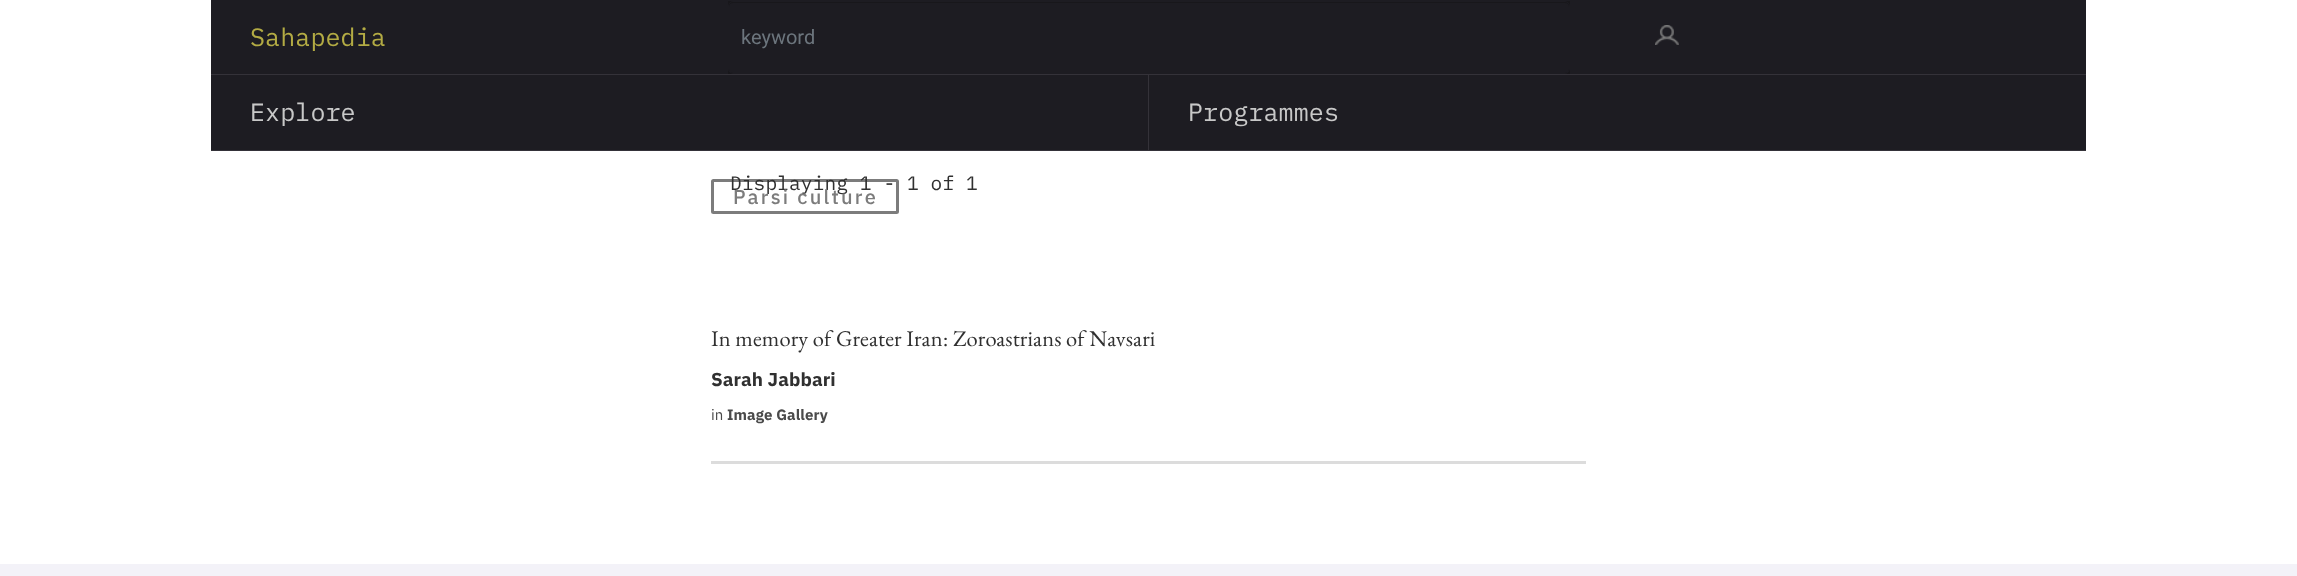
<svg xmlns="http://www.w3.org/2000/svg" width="2297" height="576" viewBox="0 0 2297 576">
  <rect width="100%" height="100%" fill="rgb(255,255,255)"/>
  <rect x="211" y="0" width="1875" height="74" fill="rgb(29,28,34)"/>
  <rect x="211" y="74" width="1875" height="1" fill="rgb(52,50,57)"/>
  <text x="250" y="46" font-family="IBM Plex Mono" font-size="25" letter-spacing="0.1" fill="rgb(179,171,68)">Sahapedia</text>
  <rect x="728" y="1" width="842" height="73" fill="rgb(24,23,27)"/>
  <rect x="729" y="3" width="840" height="70" rx="4" fill="rgb(29,28,34)"/>
  <rect x="728.5" y="1.5" width="841" height="72" rx="4.5" fill="none" stroke="rgb(29,28,34)"/>
  <text x="741" y="44" font-family="Roboto" font-size="20" fill="rgb(108,117,125)">keyword</text>
  <image x="1655" y="25" width="24" height="20" href="pic1.png"/>
  <rect x="211" y="150" width="1875" height="1" fill="rgb(52,50,57)"/>
  <rect x="211" y="75" width="937" height="75" fill="rgb(29,28,34)"/>
  <rect x="1148" y="75" width="1" height="75" fill="rgb(52,50,57)"/>
  <text x="250" y="121" font-family="IBM Plex Mono" font-size="25" letter-spacing="0.1" fill="rgb(200,200,200)">Explore</text>
  <rect x="1149" y="75" width="937" height="75" fill="rgb(29,28,34)"/>
  <text x="1188" y="121" font-family="IBM Plex Mono" font-size="25" letter-spacing="0.1" fill="rgb(200,200,200)">Programmes</text>
  <rect x="712.5" y="180.5" width="185" height="32" rx="1" fill="none" stroke="rgb(124,124,124)" stroke-width="3"/>
  <text x="730" y="190" font-family="IBM Plex Mono" font-size="19.5" letter-spacing="0.1" fill="rgb(48,48,48)">Displaying 1 - 1 of 1</text>
  <rect x="711" y="461" width="875" height="3" fill="rgb(220,220,220)"/>
  <text x="711" y="346" font-family="EB Garamond" font-size="22.5" letter-spacing="0.1" fill="rgb(48,48,48)">In memory of Greater Iran: Zoroastrians of Navsari</text>
  <text x="711" y="386" font-family="IBM Plex Sans" font-size="18.75" font-weight="bold" letter-spacing="0.1" fill="rgb(48,48,48)">Sarah Jabbari</text>
  <text x="711" y="420" font-family="IBM Plex Sans" font-size="15" letter-spacing="0.1" fill="rgb(74,74,74)">in</text>
  <text x="727" y="420" font-family="IBM Plex Sans" font-size="15" font-weight="bold" letter-spacing="0.1" fill="rgb(74,74,74)">Image Gallery</text>
  <text x="733" y="204" font-family="IBM Plex Sans" font-size="20" font-weight="500" letter-spacing="2.25" fill="rgb(124,124,124)">Parsi culture</text>
  <rect x="0" y="564" width="2297" height="12" fill="rgb(243,242,248)"/>
</svg>
